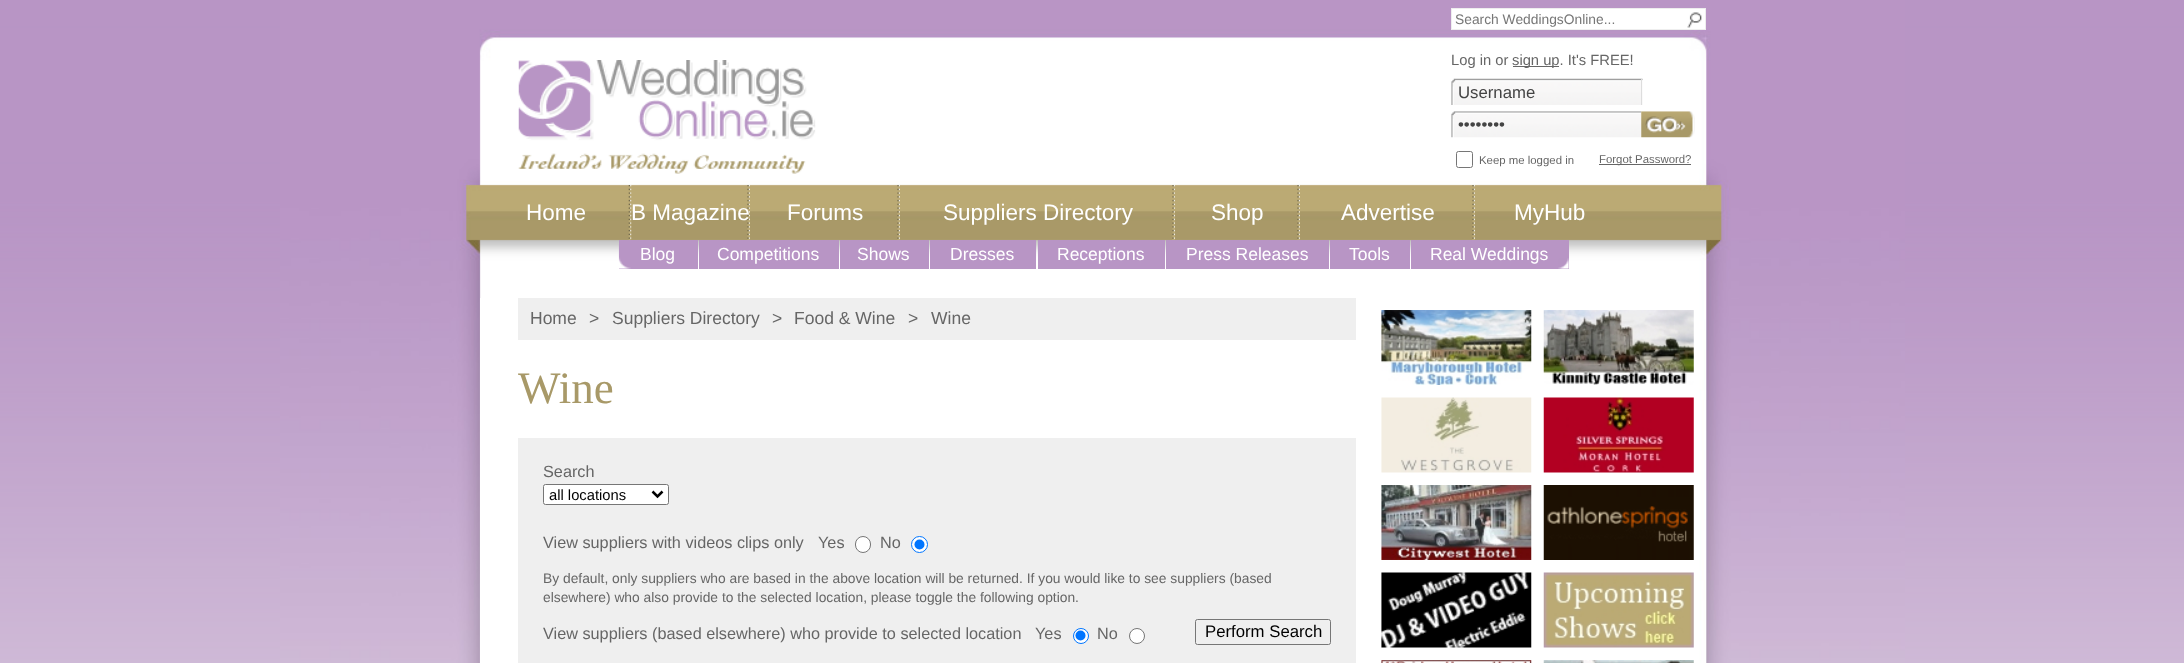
<svg xmlns="http://www.w3.org/2000/svg" width="2184" height="663" viewBox="0 0 2184 663">
  <rect width="100%" height="100%" fill="rgb(255,255,255)"/>
  <image x="0" y="0" width="2184" height="663" href="pic1.png"/>
  <image x="280" y="0" width="1625" height="663" href="pic2.png"/>
  <rect x="1451.5" y="8.5" width="254" height="21" fill="rgb(255,255,255)" stroke="rgb(238,238,238)"/>
  <text x="1455" y="24" font-family="Liberation Sans" font-size="13.82" fill="rgb(119,119,119)">Search WeddingsOnline...</text>
  <image x="1687" y="12" width="15" height="16" href="pic3.png"/>
  <image x="518" y="60" width="298" height="114" href="pic4.png"/>
  <text x="1451" y="65" font-family="Liberation Sans" font-size="14.75" fill="rgb(102,102,102)">Log in or</text>
  <rect x="1513" y="66" width="46" height="1" fill="rgb(102,102,102)"/>
  <text x="1512" y="65" font-family="Liberation Sans" font-size="14.75" fill="rgb(102,102,102)">sign up. It's FREE!</text>
  <image x="1451" y="78" width="192" height="27" href="pic5.png"/>
  <rect x="1641" y="79" width="1" height="26" fill="rgb(221,221,221)"/>
  <text x="1458" y="98" font-family="Liberation Sans" font-size="16.75" fill="rgb(68,68,68)">Username</text>
  <image x="1451" y="111" width="191" height="27" href="pic6.png"/>
  <text x="1458" y="130" font-family="Liberation Sans" font-size="16.75" fill="rgb(68,68,68)">••••••••</text>
  <image x="1641" y="111" width="54" height="27" href="pic7.png"/>
  <rect x="1456.5" y="151.5" width="16" height="16" rx="2" fill="none" stroke="rgb(118,118,118)"/>
  <text x="1479" y="164" font-family="Liberation Sans" font-size="11.4" fill="rgb(102,102,102)">Keep me logged in</text>
  <rect x="1599" y="164" width="92" height="1" fill="rgb(102,102,102)"/>
  <text x="1599" y="163" font-family="Liberation Sans" font-size="11.4" fill="rgb(102,102,102)">Forgot Password?</text>
  <image x="628" y="185" width="4" height="55" href="pic8.png"/>
  <text x="526" y="220" font-family="Liberation Sans" font-size="22.5" fill="rgb(255,255,255)">Home</text>
  <image x="747" y="185" width="3" height="55" href="pic9.png"/>
  <text x="631" y="220" font-family="Liberation Sans" font-size="22.5" fill="rgb(255,255,255)">B Magazine</text>
  <image x="897" y="185" width="3" height="55" href="pic9.png"/>
  <text x="787" y="220" font-family="Liberation Sans" font-size="22.5" fill="rgb(255,255,255)">Forums</text>
  <image x="1172" y="185" width="3" height="55" href="pic9.png"/>
  <text x="943" y="220" font-family="Liberation Sans" font-size="22.5" fill="rgb(255,255,255)">Suppliers Directory</text>
  <image x="1297" y="185" width="3" height="55" href="pic9.png"/>
  <text x="1211" y="220" font-family="Liberation Sans" font-size="22.5" fill="rgb(255,255,255)">Shop</text>
  <image x="1472" y="185" width="3" height="55" href="pic9.png"/>
  <g font-family="Liberation Sans" font-size="22.5" fill="rgb(255,255,255)">
    <text x="1341" y="220">Advertise</text>
    <text x="1514" y="220">MyHub</text>
  </g>
  <rect x="619" y="240" width="79" height="29" fill="rgb(184,149,197)"/>
  <image x="618" y="244" width="13" height="25" href="pic10.png"/>
  <text x="640" y="260" font-family="Liberation Sans" font-size="17.5" fill="rgb(255,255,255)">Blog</text>
  <rect x="699" y="240" width="140" height="29" fill="rgb(184,149,197)"/>
  <text x="717" y="260" font-family="Liberation Sans" font-size="17.5" fill="rgb(255,255,255)">Competitions</text>
  <rect x="840" y="240" width="89" height="29" fill="rgb(184,149,197)"/>
  <text x="857" y="260" font-family="Liberation Sans" font-size="17.5" fill="rgb(255,255,255)">Shows</text>
  <rect x="930" y="240" width="106" height="29" fill="rgb(184,149,197)"/>
  <text x="950" y="260" font-family="Liberation Sans" font-size="17.5" fill="rgb(255,255,255)">Dresses</text>
  <rect x="1038" y="240" width="127" height="29" fill="rgb(184,149,197)"/>
  <text x="1057" y="260" font-family="Liberation Sans" font-size="17.5" fill="rgb(255,255,255)">Receptions</text>
  <rect x="1166" y="240" width="163" height="29" fill="rgb(184,149,197)"/>
  <text x="1186" y="260" font-family="Liberation Sans" font-size="17.5" fill="rgb(255,255,255)">Press Releases</text>
  <rect x="1330" y="240" width="80" height="29" fill="rgb(184,149,197)"/>
  <text x="1349" y="260" font-family="Liberation Sans" font-size="17.5" fill="rgb(255,255,255)">Tools</text>
  <rect x="1411" y="240" width="158" height="29" fill="rgb(184,149,197)"/>
  <image x="1558" y="258" width="11" height="11" href="pic11.png"/>
  <text x="1430" y="260" font-family="Liberation Sans" font-size="17.5" fill="rgb(255,255,255)">Real Weddings</text>
  <rect x="480" y="298" width="1" height="365" fill="rgb(255,255,255)"/>
  <rect x="518" y="298" width="838" height="42" fill="rgb(239,239,239)"/>
  <g font-family="Liberation Sans" font-size="17.5" fill="rgb(102,102,102)">
    <text x="530" y="324">Home</text>
    <text x="589" y="324">&gt;</text>
    <text x="612" y="324">Suppliers Directory</text>
    <text x="772" y="324">&gt;</text>
    <text x="794" y="324">Food &amp; Wine</text>
    <text x="908" y="324">&gt;</text>
    <text x="931" y="324">Wine</text>
  </g>
  <text x="518" y="403" font-family="Liberation Serif" font-size="45" fill="rgb(168,153,104)">Wine</text>
  <rect x="518" y="438" width="838" height="225" fill="rgb(239,239,239)"/>
  <text x="543" y="477" font-family="Liberation Sans" font-size="16.25" fill="rgb(102,102,102)">Search</text>
  <rect x="543.5" y="484.5" width="125" height="20" rx="2" fill="rgb(255,255,255)" stroke="rgb(118,118,118)"/>
  <path d="M652.5 491.5L657.5 496.5L662.5 491.5" fill="none" stroke="rgb(0,0,0)" stroke-width="2.5"/>
  <text x="549" y="500" font-family="Liberation Sans" font-size="14.75" fill="rgb(0,0,0)">all locations</text>
  <g font-family="Liberation Sans" font-size="16.25" fill="rgb(102,102,102)">
    <text x="543" y="548">View suppliers with videos clips only</text>
    <text x="818" y="548">Yes</text>
  </g>
  <rect x="855.5" y="536.5" width="15" height="16" rx="7.5" fill="rgb(255,255,255)" stroke="rgb(118,118,118)"/>
  <text x="880" y="548" font-family="Liberation Sans" font-size="16.25" fill="rgb(102,102,102)">No</text>
  <circle cx="919.5" cy="544.5" r="8" fill="rgb(255,255,255)" stroke="rgb(0,117,255)"/>
  <circle cx="919.5" cy="544.5" r="5" fill="rgb(0,117,255)"/>
  <g font-family="Liberation Sans" font-size="13.82" fill="rgb(102,102,102)">
    <text>
      <tspan x="543" y="583">By default, only suppliers who are based in the above location will be returned. If you would like to see suppliers (based</tspan>
      <tspan x="543" y="602">elsewhere) who also provide to the selected location, please toggle the following option.</tspan>
    </text>
  </g>
  <g font-family="Liberation Sans" font-size="16.25" fill="rgb(102,102,102)">
    <text x="543" y="639">View suppliers (based elsewhere) who provide to selected location</text>
    <text x="1035" y="639">Yes</text>
  </g>
  <circle cx="1081" cy="636" r="7.5" fill="rgb(255,255,255)" stroke="rgb(0,117,255)"/>
  <circle cx="1080.5" cy="635.5" r="5" fill="rgb(0,117,255)"/>
  <text x="1097" y="639" font-family="Liberation Sans" font-size="16.25" fill="rgb(102,102,102)">No</text>
  <circle cx="1137" cy="636" r="7.5" fill="rgb(255,255,255)" stroke="rgb(118,118,118)"/>
  <rect x="1195.5" y="619.5" width="135" height="25" rx="2" fill="none" stroke="rgb(118,118,118)"/>
  <text x="1205" y="637" font-family="Liberation Sans" font-size="16.75" fill="rgb(0,0,0)">Perform Search</text>
  <image x="1381" y="310" width="151" height="75" href="pic12.png"/>
  <image x="1543" y="310" width="151" height="75" href="pic13.png"/>
  <image x="1381" y="397" width="151" height="76" href="pic14.png"/>
  <image x="1543" y="397" width="151" height="76" href="pic15.png"/>
  <image x="1381" y="485" width="151" height="75" href="pic16.png"/>
  <image x="1543" y="485" width="151" height="75" href="pic17.png"/>
  <image x="1381" y="572" width="151" height="76" href="pic18.png"/>
  <image x="1543" y="572" width="151" height="76" href="pic19.png"/>
  <image x="1381" y="660" width="151" height="3" href="pic20.png"/>
  <image x="1543" y="660" width="151" height="3" href="pic21.png"/>
</svg>
